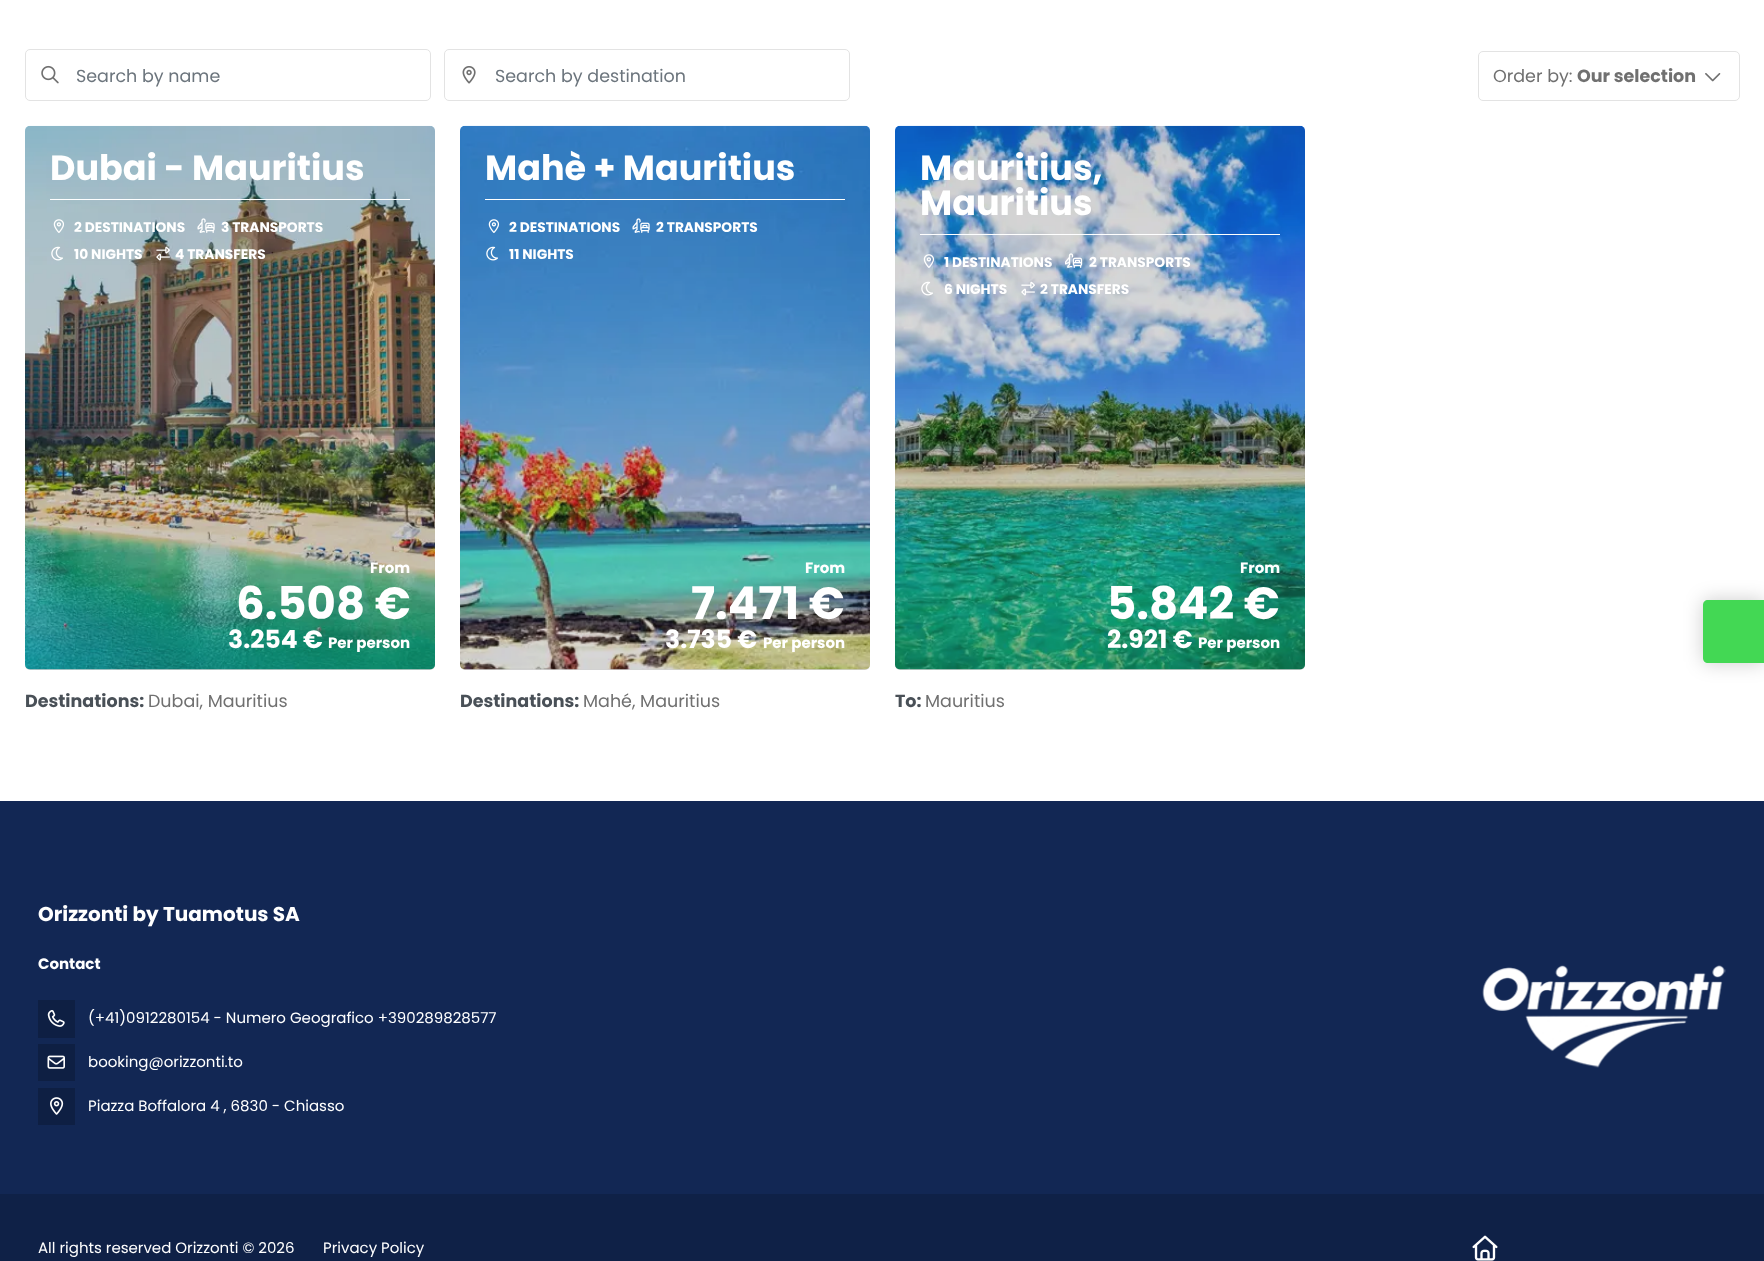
<svg xmlns="http://www.w3.org/2000/svg" width="1764" height="1261" viewBox="0 0 1764 1261">
  <rect width="100%" height="100%" fill="rgb(255,255,255)"/>
  <rect x="25.5" y="49.5" width="405" height="51" rx="4.5" fill="none" stroke="rgb(227,227,227)"/>
  <image x="41" y="65" width="18" height="19" href="pic1.png"/>
  <text x="76" y="82" font-family="Poppins" font-size="17.5" fill="rgb(108,117,125)">Search by name</text>
  <rect x="444.5" y="49.5" width="405" height="51" rx="4.5" fill="none" stroke="rgb(227,227,227)"/>
  <image x="462" y="66" width="14" height="18" href="pic2.png"/>
  <text x="495" y="82" font-family="Poppins" font-size="17.5" fill="rgb(108,117,125)">Search by destination</text>
  <rect x="1478.5" y="51.5" width="261" height="49" rx="4.5" fill="none" stroke="rgb(227,227,227)"/>
  <text x="1493" y="82" font-family="Poppins" font-size="17.5" fill="rgb(112,112,112)">Order by:</text>
  <text x="1577" y="82" font-family="Poppins" font-size="17.5" font-weight="bold" fill="rgb(112,112,112)">Our selection</text>
  <image x="1705" y="73" width="16" height="9" href="pic3.png"/>
  <rect x="25" y="126" width="410" height="544" rx="5" fill="rgb(247,247,247)"/>
  <image x="25" y="125" width="410" height="545" href="pic4.png"/>
  <rect x="25" y="126" width="410" height="544" rx="5" fill="rgba(57,57,57,0.2)"/>
  <text x="50" y="180" font-family="Poppins" font-size="35" font-weight="bold" fill="rgb(255,255,255)">Dubai - Mauritius</text>
  <rect x="50" y="199" width="360" height="1" fill="rgb(255,255,255)"/>
  <image x="53" y="219" width="11" height="14" href="pic5.png"/>
  <text x="74" y="232" font-family="Poppins" font-size="13.75" font-weight="bold" fill="rgb(255,255,255)">2 DESTINATIONS</text>
  <image x="197" y="218" width="18" height="15" href="pic6.png"/>
  <text x="221" y="232" font-family="Poppins" font-size="13.75" font-weight="bold" fill="rgb(255,255,255)">3 TRANSPORTS</text>
  <image x="51" y="246" width="12" height="15" href="pic7.png"/>
  <text x="74" y="259" font-family="Poppins" font-size="13.75" font-weight="bold" fill="rgb(255,255,255)">10 NIGHTS</text>
  <image x="156" y="246" width="14" height="15" href="pic8.png"/>
  <text x="175" y="259" font-family="Poppins" font-size="13.75" font-weight="bold" fill="rgb(255,255,255)">4 TRANSFERS</text>
  <text x="370" y="573" font-family="Poppins" font-size="15" font-weight="bold" fill="rgb(255,255,255)">From</text>
  <text x="236" y="619" font-family="Poppins" font-size="45" font-weight="bold" fill="rgb(255,255,255)">6.508 €</text>
  <text x="228" y="648" font-family="Poppins" font-size="25" font-weight="bold" fill="rgb(255,255,255)">3.254 €</text>
  <text x="328" y="648" font-family="Poppins" font-size="15" font-weight="bold" fill="rgb(255,255,255)">Per person</text>
  <text x="25" y="707" font-family="Poppins" font-size="17.5" font-weight="bold" fill="rgb(73,80,87)">Destinations:</text>
  <text x="148" y="707" font-family="Poppins" font-size="17.5" fill="rgb(112,112,112)">Dubai, Mauritius</text>
  <rect x="460" y="126" width="410" height="544" rx="5" fill="rgb(247,247,247)"/>
  <image x="460" y="125" width="410" height="545" href="pic9.png"/>
  <rect x="460" y="126" width="410" height="544" rx="5" fill="rgba(57,57,57,0.2)"/>
  <text x="485" y="180" font-family="Poppins" font-size="35" font-weight="bold" fill="rgb(255,255,255)">Mahè + Mauritius</text>
  <rect x="485" y="199" width="360" height="1" fill="rgb(255,255,255)"/>
  <image x="488" y="219" width="12" height="14" href="pic10.png"/>
  <text x="509" y="232" font-family="Poppins" font-size="13.75" font-weight="bold" fill="rgb(255,255,255)">2 DESTINATIONS</text>
  <image x="632" y="218" width="18" height="15" href="pic11.png"/>
  <text x="656" y="232" font-family="Poppins" font-size="13.75" font-weight="bold" fill="rgb(255,255,255)">2 TRANSPORTS</text>
  <image x="486" y="246" width="12" height="15" href="pic12.png"/>
  <text x="509" y="259" font-family="Poppins" font-size="13.75" font-weight="bold" fill="rgb(255,255,255)">11 NIGHTS</text>
  <text x="805" y="573" font-family="Poppins" font-size="15" font-weight="bold" fill="rgb(255,255,255)">From</text>
  <text x="691" y="619" font-family="Poppins" font-size="45" font-weight="bold" fill="rgb(255,255,255)">7.471 €</text>
  <text x="665" y="648" font-family="Poppins" font-size="25" font-weight="bold" fill="rgb(255,255,255)">3.735 €</text>
  <text x="763" y="648" font-family="Poppins" font-size="15" font-weight="bold" fill="rgb(255,255,255)">Per person</text>
  <text x="460" y="707" font-family="Poppins" font-size="17.5" font-weight="bold" fill="rgb(73,80,87)">Destinations:</text>
  <text x="583" y="707" font-family="Poppins" font-size="17.5" fill="rgb(112,112,112)">Mahé, Mauritius</text>
  <rect x="895" y="126" width="410" height="544" rx="5" fill="rgb(247,247,247)"/>
  <image x="895" y="125" width="410" height="545" href="pic13.png"/>
  <rect x="895" y="126" width="410" height="544" rx="5" fill="rgba(57,57,57,0.2)"/>
  <g font-family="Poppins" font-size="35" font-weight="bold" fill="rgb(255,255,255)">
    <text>
      <tspan x="920" y="180">Mauritius,</tspan>
      <tspan x="920" y="215">Mauritius</tspan>
    </text>
  </g>
  <rect x="920" y="234" width="360" height="1" fill="rgb(255,255,255)"/>
  <image x="923" y="254" width="12" height="14" href="pic14.png"/>
  <text x="944" y="267" font-family="Poppins" font-size="13.75" font-weight="bold" fill="rgb(255,255,255)">1 DESTINATIONS</text>
  <image x="1065" y="253" width="18" height="15" href="pic15.png"/>
  <text x="1089" y="267" font-family="Poppins" font-size="13.75" font-weight="bold" fill="rgb(255,255,255)">2 TRANSPORTS</text>
  <image x="921" y="281" width="12" height="15" href="pic16.png"/>
  <text x="944" y="294" font-family="Poppins" font-size="13.75" font-weight="bold" fill="rgb(255,255,255)">6 NIGHTS</text>
  <image x="1021" y="281" width="14" height="15" href="pic17.png"/>
  <text x="1040" y="294" font-family="Poppins" font-size="13.75" font-weight="bold" fill="rgb(255,255,255)">2 TRANSFERS</text>
  <text x="1240" y="573" font-family="Poppins" font-size="15" font-weight="bold" fill="rgb(255,255,255)">From</text>
  <text x="1107" y="619" font-family="Poppins" font-size="45" font-weight="bold" fill="rgb(255,255,255)">5.842 €</text>
  <text x="1107" y="648" font-family="Poppins" font-size="25" font-weight="bold" fill="rgb(255,255,255)">2.921 €</text>
  <text x="1198" y="648" font-family="Poppins" font-size="15" font-weight="bold" fill="rgb(255,255,255)">Per person</text>
  <text x="895" y="707" font-family="Poppins" font-size="17.5" font-weight="bold" fill="rgb(73,80,87)">To:</text>
  <text x="925" y="707" font-family="Poppins" font-size="17.5" fill="rgb(112,112,112)">Mauritius</text>
  <rect x="1703" y="600" width="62" height="63" rx="5" fill="rgba(0,0,0,0.2)" filter="blur(9.5px)"/>
  <path d="M1708 600H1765V663H1708C1705 663 1703 661 1703 658V605C1703 602 1705 600 1708 600Z" fill="rgb(67,216,84)"/>
  <rect x="0" y="801" width="1764" height="393" fill="rgb(18,39,84)"/>
  <text x="38" y="921" font-family="Poppins" font-size="20" font-weight="bold" fill="rgb(255,255,255)">Orizzonti by Tuamotus SA</text>
  <text x="38" y="969" font-family="Poppins" font-size="15" font-weight="bold" fill="rgb(255,255,255)">Contact</text>
  <rect x="38" y="1000" width="37" height="38" fill="rgb(14,31,67)"/>
  <image x="47" y="1010" width="18" height="17" href="pic18.png"/>
  <text x="88" y="1023" font-family="Poppins" font-size="15" fill="rgb(255,255,255)">(+41)0912280154 - Numero Geografico +390289828577</text>
  <rect x="38" y="1044" width="37" height="37" fill="rgb(14,31,67)"/>
  <image x="47" y="1055" width="18" height="14" href="pic19.png"/>
  <text x="88" y="1067" font-family="Poppins" font-size="15" fill="rgb(255,255,255)">booking@orizzonti.to</text>
  <rect x="38" y="1088" width="37" height="37" fill="rgb(14,31,67)"/>
  <image x="50" y="1097" width="14" height="18" href="pic20.png"/>
  <text x="88" y="1111" font-family="Poppins" font-size="15" fill="rgb(255,255,255)">Piazza Boffalora 4 , 6830 - Chiasso</text>
  <image x="1482" y="965" width="244" height="103" href="pic21.png"/>
  <rect x="0" y="1194" width="1764" height="67" fill="rgb(15,33,71)"/>
  <g font-family="Poppins" font-size="15" fill="rgb(255,255,255)">
    <text x="38" y="1253">All rights reserved Orizzonti © 2026</text>
    <text x="323" y="1253">Privacy Policy</text>
  </g>
  <image x="1472" y="1235" width="26" height="26" href="pic22.png"/>
</svg>
